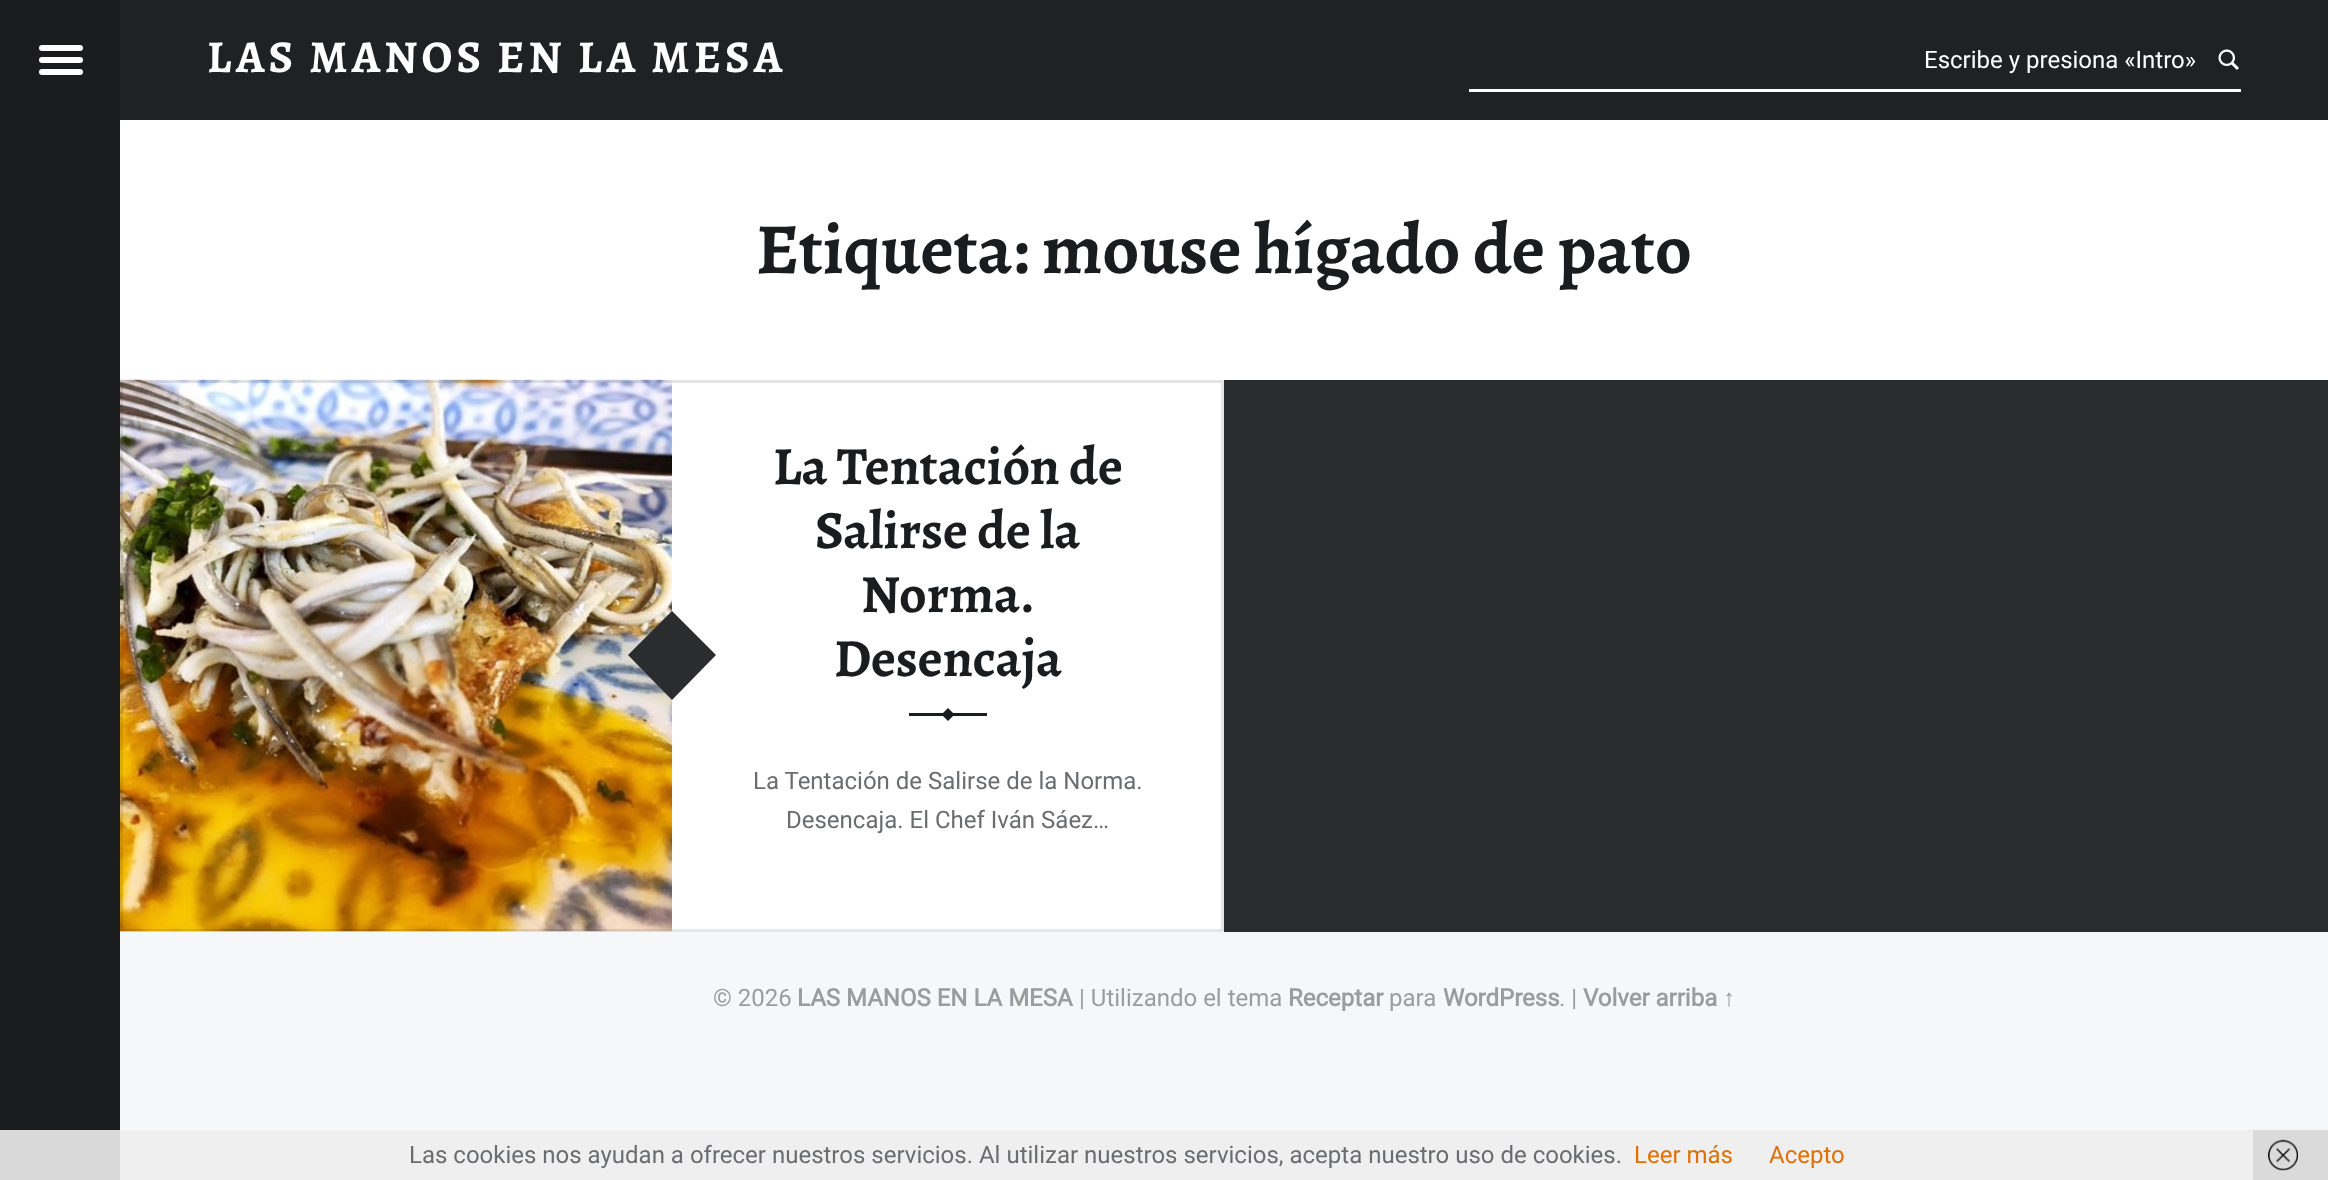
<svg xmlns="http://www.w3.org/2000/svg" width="2328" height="1180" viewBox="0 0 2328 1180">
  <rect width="100%" height="100%" fill="rgb(245,247,249)"/>
  <rect x="120" y="1130" width="2133" height="50" fill="rgb(239,239,239)"/>
  <rect x="120" y="120" width="2208" height="260" fill="rgb(255,255,255)"/>
  <rect x="0" y="0" width="120" height="1130" fill="rgb(26,28,30)"/>
  <rect x="0" y="1130" width="120" height="50" fill="rgb(217,217,217)"/>
  <rect x="39" y="45" width="44" height="6" rx="3" fill="rgb(255,255,255)"/>
  <rect x="39" y="57" width="44" height="6" rx="3" fill="rgb(255,255,255)"/>
  <rect x="39" y="69" width="44" height="6" rx="3" fill="rgb(255,255,255)"/>
  <rect x="120" y="0" width="2208" height="120" fill="rgb(32,33,35)"/>
  <text x="207" y="72" font-family="Alegreya" font-size="45.6" font-weight="bold" letter-spacing="4.1" fill="rgb(255,255,255)">LAS MANOS EN LA MESA</text>
  <rect x="1469" y="89" width="772" height="3" fill="rgb(255,255,255)"/>
  <text x="1924" y="68" font-family="Roboto" font-size="24" fill="rgb(255,255,255)">Escribe y presiona «Intro»</text>
  <image x="2218" y="49" width="21" height="21" href="pic1.png"/>
  <text x="756" y="273" font-family="Alegreya" font-size="72" font-weight="bold" fill="rgb(26,28,30)">Etiqueta: mouse hígado de pato</text>
  <rect x="1224" y="380" width="1104" height="552" fill="rgb(42,44,46)"/>
  <rect x="120" y="380" width="1104" height="552" fill="rgb(255,255,255)"/>
  <image x="120" y="379" width="552" height="553" href="pic2.png"/>
  <path d="M672 611L716 655L672 700L628 655Z" fill="rgb(42,44,46)"/>
  <rect x="909" y="713" width="78" height="3" fill="rgb(26,28,30)"/>
  <path d="M948 708L954.5 714.5L948 721L941.5 714.5Z" fill="rgb(26,28,30)"/>
  <rect x="121.5" y="381.5" width="1101" height="549" fill="none" stroke="rgba(0,0,0,0.1)" stroke-width="3"/>
  <g font-family="Alegreya" font-size="53.75" font-weight="bold" fill="rgb(26,28,30)">
    <text x="773" y="484">La Tentación de</text>
    <text x="815" y="548">Salirse de la</text>
    <text x="861" y="612">Norma.</text>
    <text x="834" y="676">Desencaja</text>
  </g>
  <g font-family="Roboto" font-size="24" fill="rgb(106,108,110)">
    <text x="753" y="789">La Tentación de Salirse de la Norma.</text>
    <text x="786" y="828">Desencaja. El Chef Iván Sáez…</text>
  </g>
  <text x="713" y="1006" font-family="Roboto" font-size="24" fill="rgb(154,156,158)">© 2026</text>
  <text x="797" y="1006" font-family="Roboto" font-size="24" font-weight="bold" fill="rgb(154,156,158)">LAS MANOS EN LA MESA</text>
  <text x="1079" y="1006" font-family="Roboto" font-size="24" fill="rgb(154,156,158)">| Utilizando el tema</text>
  <text x="1288" y="1006" font-family="Roboto" font-size="24" font-weight="bold" fill="rgb(154,156,158)">Receptar</text>
  <text x="1389" y="1006" font-family="Roboto" font-size="24" fill="rgb(154,156,158)">para</text>
  <text x="1443" y="1006" font-family="Roboto" font-size="24" font-weight="bold" fill="rgb(154,156,158)">WordPress</text>
  <text x="1559" y="1006" font-family="Roboto" font-size="24" fill="rgb(154,156,158)">. |</text>
  <text x="1583" y="1006" font-family="Roboto" font-size="24" font-weight="bold" fill="rgb(154,156,158)">Volver arriba</text>
  <text x="1723" y="1006" font-family="Liberation Sans" font-size="24" font-weight="bold" fill="rgb(154,156,158)">↑</text>
  <text x="409" y="1163" font-family="Roboto" font-size="24" fill="rgb(106,108,110)">Las cookies nos ayudan a ofrecer nuestros servicios. Al utilizar nuestros servicios, acepta nuestro uso de cookies.</text>
  <g font-family="Roboto" font-size="24" fill="rgb(224,112,0)">
    <text x="1634" y="1163">Leer más</text>
    <text x="1769" y="1163">Acepto</text>
  </g>
  <rect x="2253" y="1130" width="75" height="50" fill="rgb(218,218,218)"/>
  <image x="2268" y="1139" width="30" height="32" href="pic3.png"/>
</svg>
